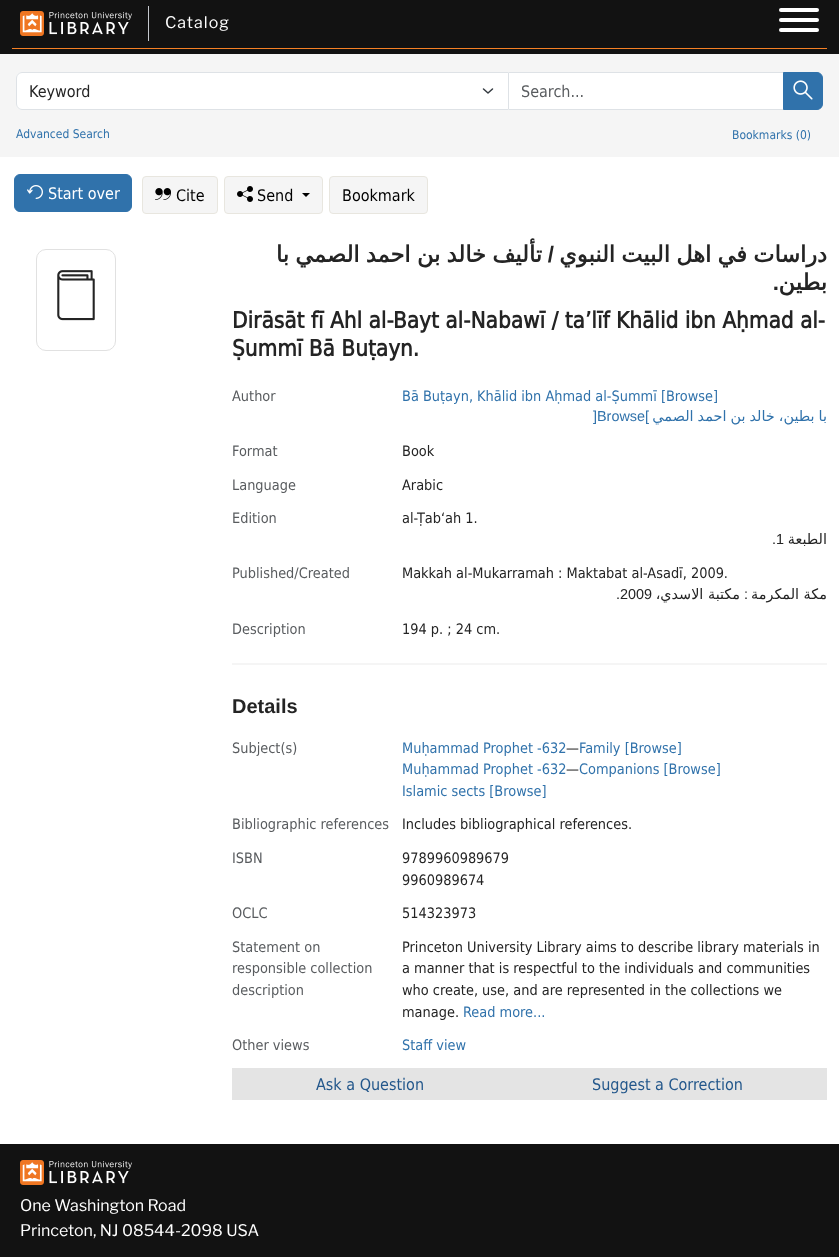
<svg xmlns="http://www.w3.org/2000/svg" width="839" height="1257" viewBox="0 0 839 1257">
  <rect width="100%" height="100%" fill="rgb(245,245,245)"/>
  <rect x="0" y="0" width="839" height="54" fill="rgb(18,18,18)"/>
  <rect x="12" y="48" width="815" height="1" fill="rgb(245,128,37)"/>
  <image x="20" y="11" width="112" height="25" href="pic1.png"/>
  <rect x="148" y="6" width="1" height="35" fill="rgb(197,200,206)"/>
  <text x="165" y="28" font-family="Libre Franklin" font-size="16" letter-spacing="1" fill="rgb(255,255,255)">Catalog</text>
  <rect x="779" y="18" width="40" height="4" rx="2" fill="rgb(255,255,255)"/>
  <rect x="779" y="8" width="40" height="4" rx="2" fill="rgb(255,255,255)"/>
  <rect x="779" y="28" width="40" height="4" rx="2" fill="rgb(255,255,255)"/>
  <rect x="508.5" y="72.5" width="275" height="37" fill="rgb(255,255,255)" stroke="rgb(222,226,230)"/>
  <path d="M22 72H509V110H22C18.5 110 16 107.5 16 104V78C16 74.5 18.5 72 22 72Z" fill="rgb(255,255,255)"/>
  <path d="M483.5 89L488 93L492.5 89" fill="none" stroke="rgb(52,58,64)" stroke-width="1.5" stroke-linecap="round" stroke-linejoin="round"/>
  <path d="M22 72.5H508.5V109.5H22C19 109.5 16.5 107 16.5 104V78C16.5 75 19 72.5 22 72.5Z" fill="none" stroke="rgb(222,226,230)"/>
  <text x="29" y="97" font-family="DejaVu Sans" font-size="16" fill="rgb(36,36,36)">Keyword</text>
  <text x="521" y="97" font-family="DejaVu Sans" font-size="16" fill="rgb(89,92,95)">Search...</text>
  <path d="M783.5 72.5H817C820 72.5 822.5 75 822.5 78V104C822.5 107 820 109.5 817 109.5H783.5Z" fill="rgb(48,114,171)" stroke="rgb(48,114,171)"/>
  <image x="793" y="80" width="20" height="20" href="pic2.png"/>
  <g font-family="DejaVu Sans" font-size="12" fill="rgb(48,114,171)">
    <text x="16" y="138">Advanced Search</text>
    <text x="732" y="139">Bookmarks (0)</text>
  </g>
  <rect x="0" y="157" width="839" height="987" fill="rgb(255,255,255)"/>
  <rect x="14.5" y="174.5" width="117" height="37" rx="5.5" fill="rgb(48,114,171)" stroke="rgb(48,114,171)"/>
  <image x="27" y="185" width="16" height="14" href="pic3.png"/>
  <text x="48" y="199" font-family="DejaVu Sans" font-size="16" fill="rgb(255,255,255)">Start over</text>
  <rect x="142.5" y="176.5" width="75" height="37" rx="3.5" fill="rgb(245,245,245)" stroke="rgb(232,230,223)"/>
  <image x="155" y="188" width="16" height="12" href="pic4.png"/>
  <text x="176" y="201" font-family="DejaVu Sans" font-size="16" fill="rgb(0,0,0)">Cite</text>
  <rect x="224.5" y="176.5" width="98" height="37" rx="3.5" fill="rgb(245,245,245)" stroke="rgb(232,230,223)"/>
  <image x="237" y="186" width="16" height="16" href="pic5.png"/>
  <text x="257" y="201" font-family="DejaVu Sans" font-size="16" fill="rgb(0,0,0)">Send</text>
  <path d="M302 193H310L306 197Z" fill="rgb(0,0,0)"/>
  <rect x="329.5" y="176.5" width="98" height="37" rx="3.5" fill="rgb(245,245,245)" stroke="rgb(232,230,223)"/>
  <text x="342" y="201" font-family="DejaVu Sans" font-size="16" fill="rgb(0,0,0)">Bookmark</text>
  <rect x="36.5" y="249.5" width="79" height="101" rx="9.5" fill="none" stroke="rgb(225,225,225)"/>
  <image x="57" y="270" width="38" height="51" href="pic6.png"/>
  <text x="542" y="262" word-spacing="-0.75" font-family="DejaVu Sans" font-size="22.4" font-weight="bold" direction="rtl" fill="rgb(36,36,36)">تأليف خالد بن احمد الصمي با</text>
  <text x="554" y="262" font-family="Liberation Sans" font-size="22.4" font-weight="bold" direction="rtl" fill="rgb(36,36,36)">/</text>
  <text x="827" y="262" word-spacing="-0.75" font-family="DejaVu Sans" font-size="22.4" font-weight="bold" direction="rtl" fill="rgb(36,36,36)">دراسات في اهل البيت النبوي</text>
  <text x="779" y="290" font-family="Liberation Sans" font-size="22.4" font-weight="bold" direction="rtl" fill="rgb(36,36,36)">.</text>
  <text x="827" y="290" font-family="DejaVu Sans" font-size="22.4" font-weight="bold" direction="rtl" fill="rgb(36,36,36)">بطين</text>
  <g font-family="'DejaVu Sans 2'" font-size="22.4" font-weight="bold" fill="rgb(36,36,36)">
    <text>
      <tspan x="232" y="328">Dirāsāt fī Ahl al-Bayt al-Nabawī / taʼlīf Khālid ibn Aḥmad al-</tspan>
      <tspan x="232" y="356">Ṣummī Bā Buṭayn.</tspan>
    </text>
  </g>
  <rect x="232" y="663" width="595" height="2" fill="rgb(245,245,245)"/>
  <text x="232" y="401" font-family="DejaVu Sans" font-size="14.4" fill="rgb(89,92,95)">Author</text>
  <text x="402" y="401" font-family="DejaVu Sans" font-size="14.4" fill="rgb(48,114,171)">Bā Buṭayn, Khālid ibn Aḥmad al-Ṣummī [Browse]</text>
  <text x="593" y="421" font-family="Liberation Sans" font-size="14.4" fill="rgb(48,114,171)">]Browse[</text>
  <text x="827" y="421" word-spacing="-0.5" font-family="'DejaVu Sans 2'" font-size="14.4" direction="rtl" fill="rgb(48,114,171)">با بطين، خالد بن احمد الصمي</text>
  <text x="232" y="456" font-family="DejaVu Sans" font-size="14.4" fill="rgb(89,92,95)">Format</text>
  <text x="402" y="456" font-family="DejaVu Sans" font-size="14.4" fill="rgb(36,36,36)">Book</text>
  <text x="232" y="490" font-family="DejaVu Sans" font-size="14.4" fill="rgb(89,92,95)">Language</text>
  <text x="402" y="490" font-family="DejaVu Sans" font-size="14.4" fill="rgb(36,36,36)">Arabic</text>
  <text x="232" y="523" font-family="DejaVu Sans" font-size="14.4" fill="rgb(89,92,95)">Εdition</text>
  <text x="402" y="523" font-family="DejaVu Sans" font-size="14.4" fill="rgb(36,36,36)">al-Ṭabʻah 1.</text>
  <text x="772" y="544" font-family="Liberation Sans" font-size="14.4" fill="rgb(36,36,36)">.1</text>
  <text x="827" y="544" font-family="'DejaVu Sans 2'" font-size="14.4" direction="rtl" fill="rgb(36,36,36)">الطبعة</text>
  <text x="232" y="578" font-family="DejaVu Sans" font-size="14.4" fill="rgb(89,92,95)">Published/Created</text>
  <text x="402" y="578" font-family="DejaVu Sans" font-size="14.4" fill="rgb(36,36,36)">Makkah al-Mukarramah : Maktabat al-Asadī, 2009.</text>
  <text x="616" y="599" font-family="Liberation Sans" font-size="14.4" fill="rgb(36,36,36)">.2009</text>
  <text x="740" y="599" font-family="'DejaVu Sans 2'" font-size="14.4" direction="rtl" fill="rgb(36,36,36)">مكتبة الاسدي،</text>
  <text x="748" y="599" font-family="Liberation Sans" font-size="14.4" direction="rtl" fill="rgb(36,36,36)">:</text>
  <text x="827" y="599" font-family="'DejaVu Sans 2'" font-size="14.4" direction="rtl" fill="rgb(36,36,36)">مكة المكرمة</text>
  <text x="232" y="634" font-family="DejaVu Sans" font-size="14.4" fill="rgb(89,92,95)">Description</text>
  <text x="402" y="634" font-family="DejaVu Sans" font-size="14.4" fill="rgb(36,36,36)">194 p. ; 24 cm.</text>
  <text x="232" y="713" font-family="Liberation Sans" font-size="20" font-weight="bold" fill="rgb(36,36,36)">Details</text>
  <text x="232" y="753" font-family="DejaVu Sans" font-size="14.4" fill="rgb(89,92,95)">Subject(s)</text>
  <text x="402" y="753" font-family="DejaVu Sans" font-size="14.4" fill="rgb(48,114,171)">Muḥammad Prophet -632</text>
  <text x="566" y="753" font-family="DejaVu Sans" font-size="14.4" fill="rgb(36,36,36)">—</text>
  <g font-family="DejaVu Sans" font-size="14.4" fill="rgb(48,114,171)">
    <text x="579" y="753">Family [Browse]</text>
    <text x="402" y="774">Muḥammad Prophet -632</text>
  </g>
  <text x="566" y="774" font-family="DejaVu Sans" font-size="14.4" fill="rgb(36,36,36)">—</text>
  <g font-family="DejaVu Sans" font-size="14.4" fill="rgb(48,114,171)">
    <text x="579" y="774">Companions [Browse]</text>
    <text x="402" y="796">Islamic sects [Browse]</text>
  </g>
  <text x="232" y="829" font-family="DejaVu Sans" font-size="14.4" fill="rgb(89,92,95)">Bibliographic references</text>
  <text x="402" y="829" font-family="DejaVu Sans" font-size="14.4" fill="rgb(36,36,36)">Includes bibliographical references.</text>
  <text x="232" y="863" font-family="DejaVu Sans" font-size="14.4" fill="rgb(89,92,95)">ISBN</text>
  <g font-family="DejaVu Sans" font-size="14.4" fill="rgb(36,36,36)">
    <text>
      <tspan x="402" y="863">9789960989679</tspan>
      <tspan x="402" y="885">9960989674</tspan>
    </text>
  </g>
  <text x="232" y="918" font-family="DejaVu Sans" font-size="14.4" fill="rgb(89,92,95)">OCLC</text>
  <text x="402" y="918" font-family="DejaVu Sans" font-size="14.4" fill="rgb(36,36,36)">514323973</text>
  <g font-family="DejaVu Sans" font-size="14.4" fill="rgb(89,92,95)">
    <text>
      <tspan x="232" y="952">Statement on</tspan>
      <tspan x="232" y="973">responsible collection</tspan>
      <tspan x="232" y="995">description</tspan>
    </text>
  </g>
  <g font-family="DejaVu Sans" font-size="14.4" fill="rgb(36,36,36)">
    <text>
      <tspan x="402" y="952">Princeton University Library aims to describe library materials in</tspan>
      <tspan x="402" y="973">a manner that is respectful to the individuals and communities</tspan>
      <tspan x="402" y="995">who create, use, and are represented in the collections we</tspan>
      <tspan x="402" y="1017">manage.</tspan>
    </text>
  </g>
  <text x="463" y="1017" font-family="DejaVu Sans" font-size="14.4" fill="rgb(48,114,171)">Read more...</text>
  <text x="232" y="1050" font-family="DejaVu Sans" font-size="14.4" fill="rgb(89,92,95)">Other views</text>
  <text x="402" y="1050" font-family="DejaVu Sans" font-size="14.4" fill="rgb(48,114,171)">Staff view</text>
  <rect x="232" y="1068" width="595" height="32" fill="rgb(228,228,228)"/>
  <g font-family="DejaVu Sans" font-size="16" fill="rgb(35,87,139)">
    <text x="316" y="1090">Ask a Question</text>
    <text x="592" y="1090">Suggest a Correction</text>
  </g>
  <rect x="0" y="1144" width="839" height="113" fill="rgb(18,18,18)"/>
  <image x="20" y="1160" width="112" height="25" href="pic1.png"/>
  <g font-family="Libre Franklin" font-size="16" fill="rgb(255,255,255)">
    <text>
      <tspan x="20" y="1211">One Washington Road</tspan>
      <tspan x="20" y="1236">Princeton, NJ 08544-2098 USA</tspan>
    </text>
  </g>
</svg>
